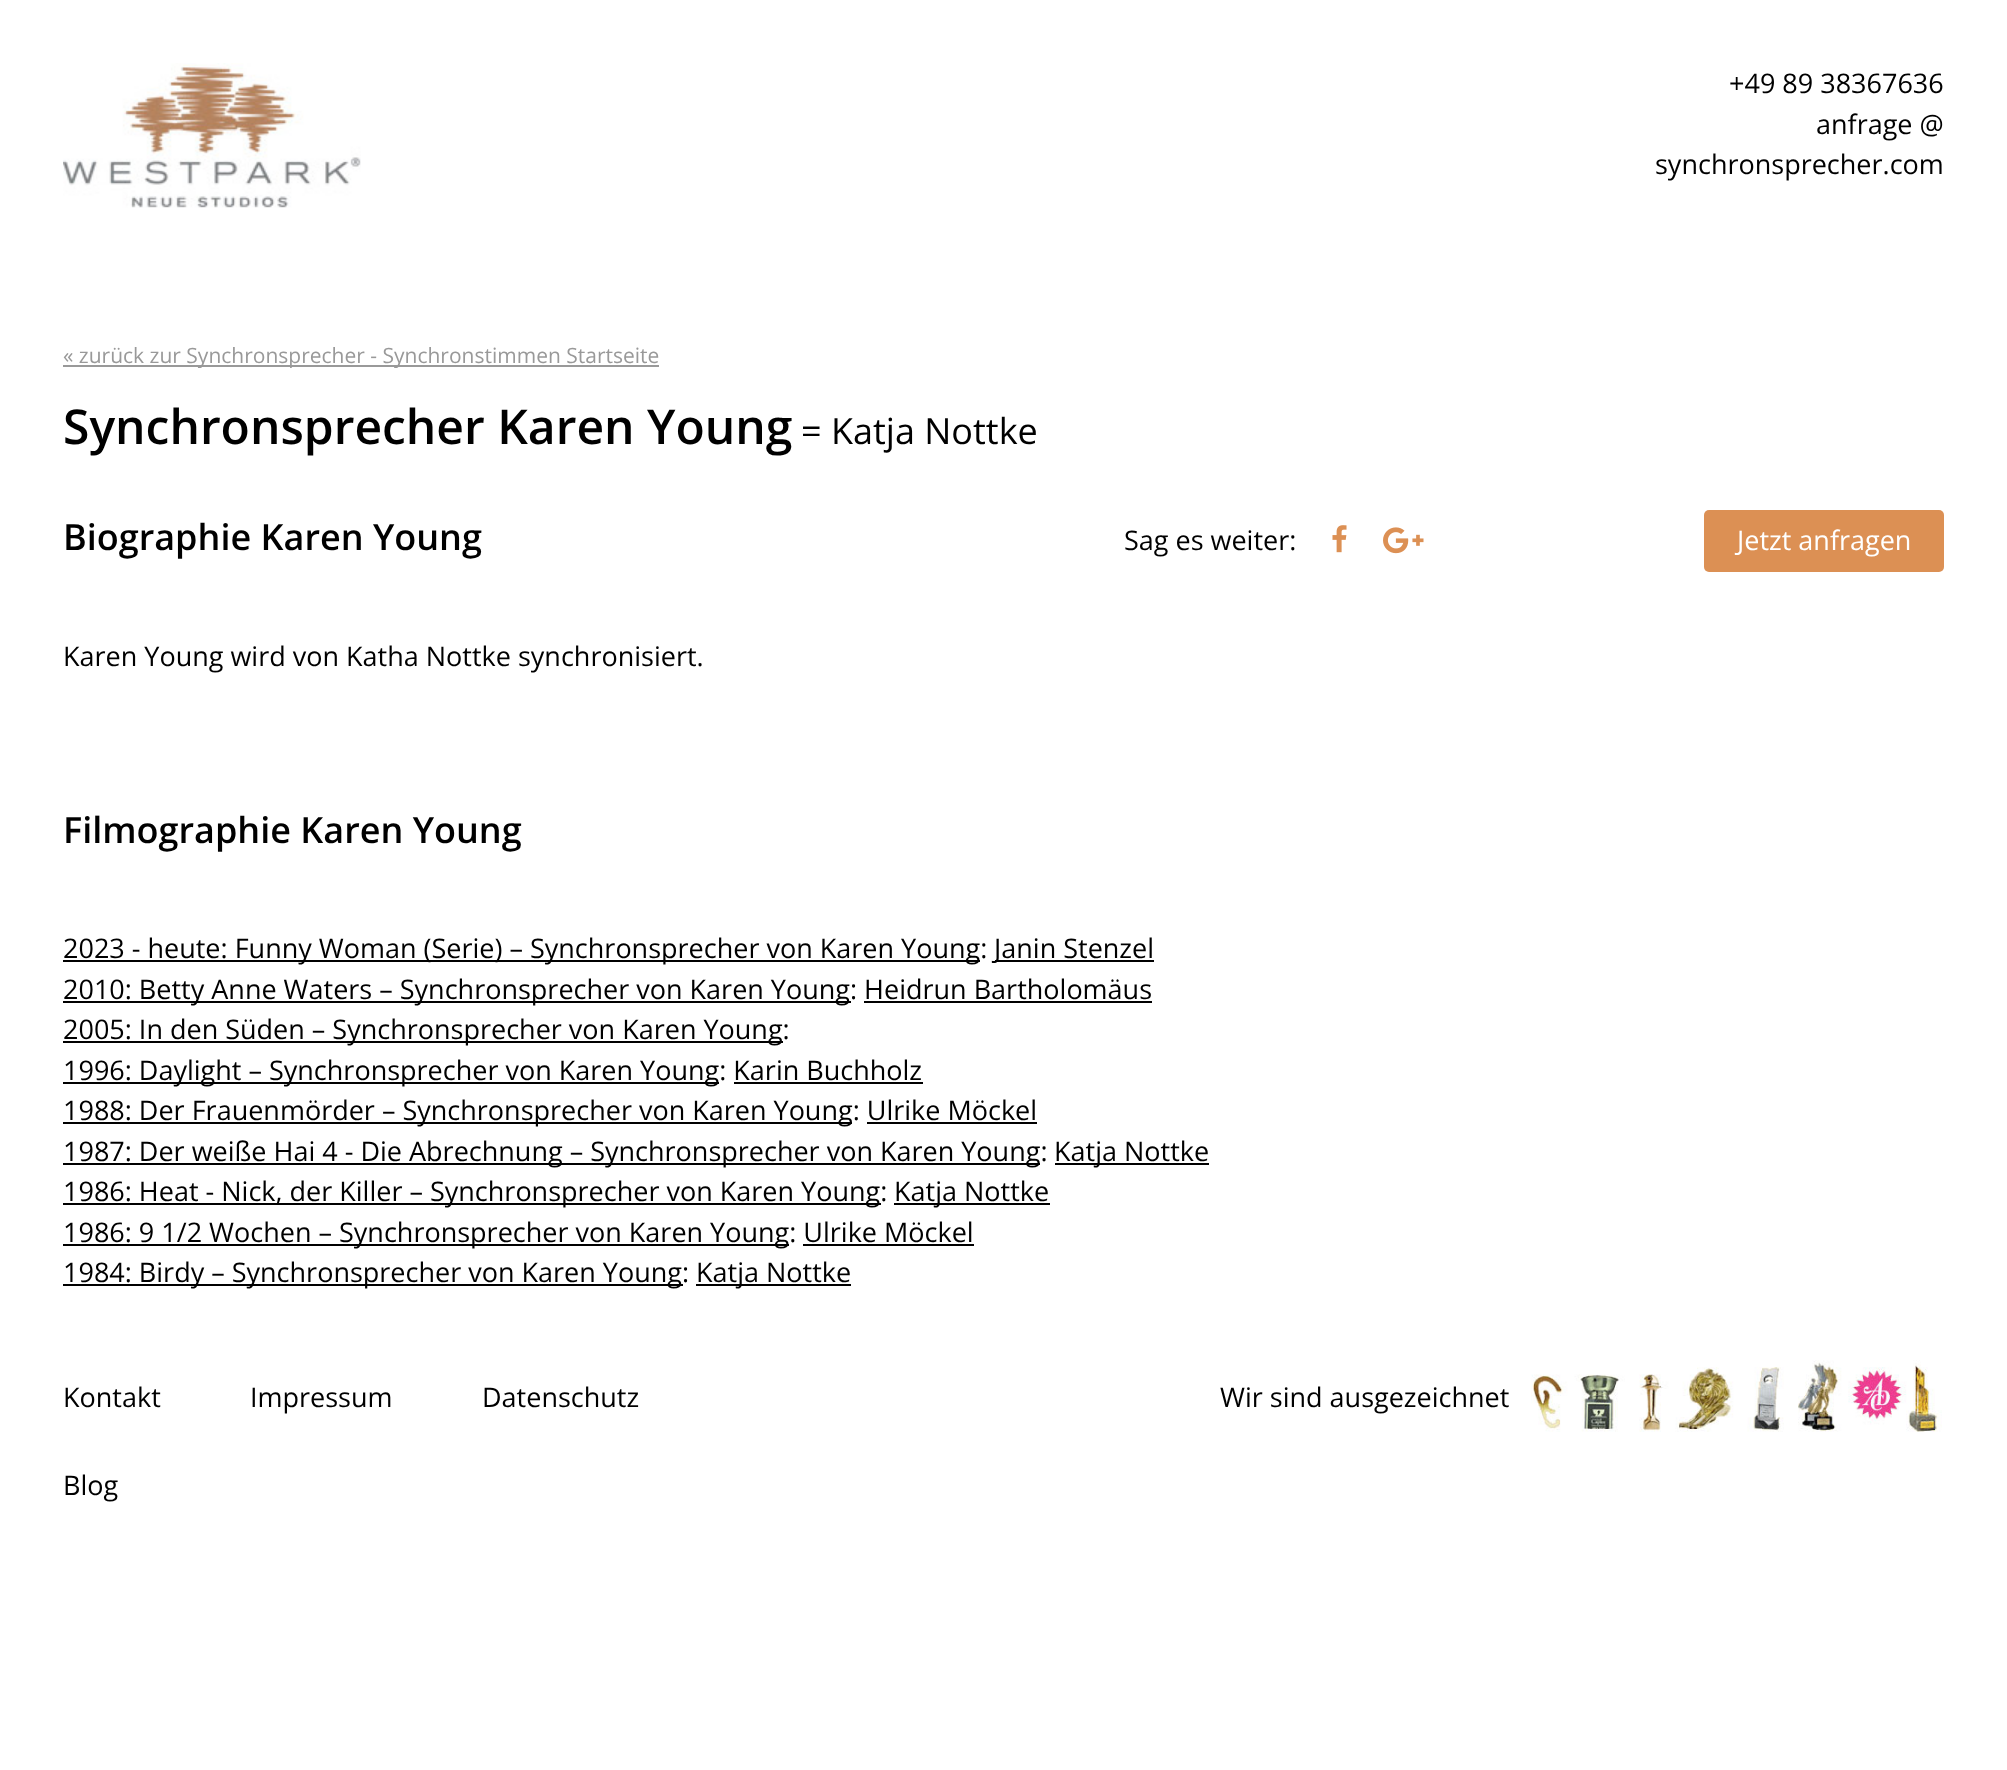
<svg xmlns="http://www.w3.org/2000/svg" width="2007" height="1770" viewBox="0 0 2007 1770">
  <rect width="100%" height="100%" fill="rgb(255,255,255)"/>
  <image x="63" y="63" width="298" height="145" href="pic1.png"/>
  <g font-family="Open Sans" font-size="27" fill="rgb(0,0,0)">
    <text x="1729" y="93">+49 89 38367636</text>
    <text x="1816" y="134">anfrage @</text>
    <text x="1655" y="174">synchronsprecher.com</text>
  </g>
  <rect x="63" y="365" width="596" height="2" fill="rgb(153,153,153)"/>
  <text x="63" y="363" font-family="Open Sans" font-size="21" fill="rgb(153,153,153)">« zurück zur Synchronsprecher - Synchronstimmen Startseite</text>
  <text x="63" y="444" font-family="Open Sans" font-size="48" font-weight="600" fill="rgb(0,0,0)">Synchronsprecher Karen Young</text>
  <text x="801" y="444" font-family="Open Sans" font-size="36" fill="rgb(0,0,0)">= Katja Nottke</text>
  <text x="63" y="550" font-family="Open Sans" font-size="36" font-weight="600" fill="rgb(0,0,0)">Biographie Karen Young</text>
  <g font-family="Open Sans" font-size="27" fill="rgb(0,0,0)">
    <text x="63" y="666">Karen Young wird von Katha Nottke synchronisiert.</text>
    <text x="1124" y="550">Sag es weiter:</text>
  </g>
  <image x="1332" y="525" width="15" height="28" href="pic2.png"/>
  <image x="1383" y="527" width="41" height="27" href="pic3.png"/>
  <rect x="1704" y="510" width="240" height="62" rx="5" fill="rgb(220,144,84)"/>
  <text x="1737" y="550" font-family="Open Sans" font-size="27" fill="rgb(255,255,255)">Jetzt anfragen</text>
  <text x="63" y="843" font-family="Open Sans" font-size="36" font-weight="600" fill="rgb(0,0,0)">Filmographie Karen Young</text>
  <rect x="63" y="960" width="917" height="2" fill="rgb(0,0,0)"/>
  <text x="63" y="958" font-family="Open Sans" font-size="27" fill="rgb(0,0,0)">2023 - heute: Funny Woman (Serie) – Synchronsprecher von Karen Young:</text>
  <rect x="995" y="960" width="159" height="2" fill="rgb(0,0,0)"/>
  <text x="994" y="958" font-family="Open Sans" font-size="27" fill="rgb(0,0,0)">Janin Stenzel</text>
  <rect x="63" y="1001" width="788" height="2" fill="rgb(0,0,0)"/>
  <text x="63" y="999" font-family="Open Sans" font-size="27" fill="rgb(0,0,0)">2010: Betty Anne Waters – Synchronsprecher von Karen Young: Heidrun Bartholomäus</text>
  <rect x="864" y="1001" width="288" height="2" fill="rgb(0,0,0)"/>
  <rect x="63" y="1041" width="720" height="2" fill="rgb(0,0,0)"/>
  <text x="63" y="1039" font-family="Open Sans" font-size="27" fill="rgb(0,0,0)">2005: In den Süden – Synchronsprecher von Karen Young:</text>
  <rect x="63" y="1082" width="656" height="2" fill="rgb(0,0,0)"/>
  <text x="63" y="1080" font-family="Open Sans" font-size="27" fill="rgb(0,0,0)">1996: Daylight – Synchronsprecher von Karen Young: Karin Buchholz</text>
  <rect x="734" y="1082" width="189" height="2" fill="rgb(0,0,0)"/>
  <rect x="63" y="1122" width="789" height="2" fill="rgb(0,0,0)"/>
  <text x="63" y="1120" font-family="Open Sans" font-size="27" fill="rgb(0,0,0)">1988: Der Frauenmörder – Synchronsprecher von Karen Young: Ulrike Möckel</text>
  <rect x="867" y="1122" width="170" height="2" fill="rgb(0,0,0)"/>
  <rect x="63" y="1163" width="977" height="2" fill="rgb(0,0,0)"/>
  <text x="63" y="1161" font-family="Open Sans" font-size="27" fill="rgb(0,0,0)">1987: Der weiße Hai 4 - Die Abrechnung – Synchronsprecher von Karen Young:</text>
  <rect x="1055" y="1163" width="154" height="2" fill="rgb(0,0,0)"/>
  <text x="1054" y="1161" font-family="Open Sans" font-size="27" fill="rgb(0,0,0)">Katja Nottke</text>
  <rect x="63" y="1203" width="818" height="2" fill="rgb(0,0,0)"/>
  <text x="63" y="1201" font-family="Open Sans" font-size="27" fill="rgb(0,0,0)">1986: Heat - Nick, der Killer – Synchronsprecher von Karen Young:</text>
  <rect x="894" y="1203" width="156" height="2" fill="rgb(0,0,0)"/>
  <text x="894" y="1201" font-family="Open Sans" font-size="27" fill="rgb(0,0,0)">Katja Nottke</text>
  <rect x="63" y="1244" width="726" height="2" fill="rgb(0,0,0)"/>
  <text x="63" y="1242" font-family="Open Sans" font-size="27" fill="rgb(0,0,0)">1986: 9 1/2 Wochen – Synchronsprecher von Karen Young: Ulrike Möckel</text>
  <rect x="803" y="1244" width="171" height="2" fill="rgb(0,0,0)"/>
  <rect x="63" y="1284" width="620" height="2" fill="rgb(0,0,0)"/>
  <text x="63" y="1282" font-family="Open Sans" font-size="27" fill="rgb(0,0,0)">1984: Birdy – Synchronsprecher von Karen Young:</text>
  <rect x="696" y="1284" width="155" height="2" fill="rgb(0,0,0)"/>
  <g font-family="Open Sans" font-size="27" fill="rgb(0,0,0)">
    <text x="696" y="1282">Katja Nottke</text>
    <text x="63" y="1407">Kontakt</text>
    <text x="250" y="1407">Impressum</text>
    <text x="482" y="1407">Datenschutz</text>
    <text x="63" y="1495">Blog</text>
    <text x="1220" y="1407">Wir sind ausgezeichnet</text>
  </g>
  <image x="1531" y="1360" width="411" height="72" href="pic4.png"/>
</svg>
